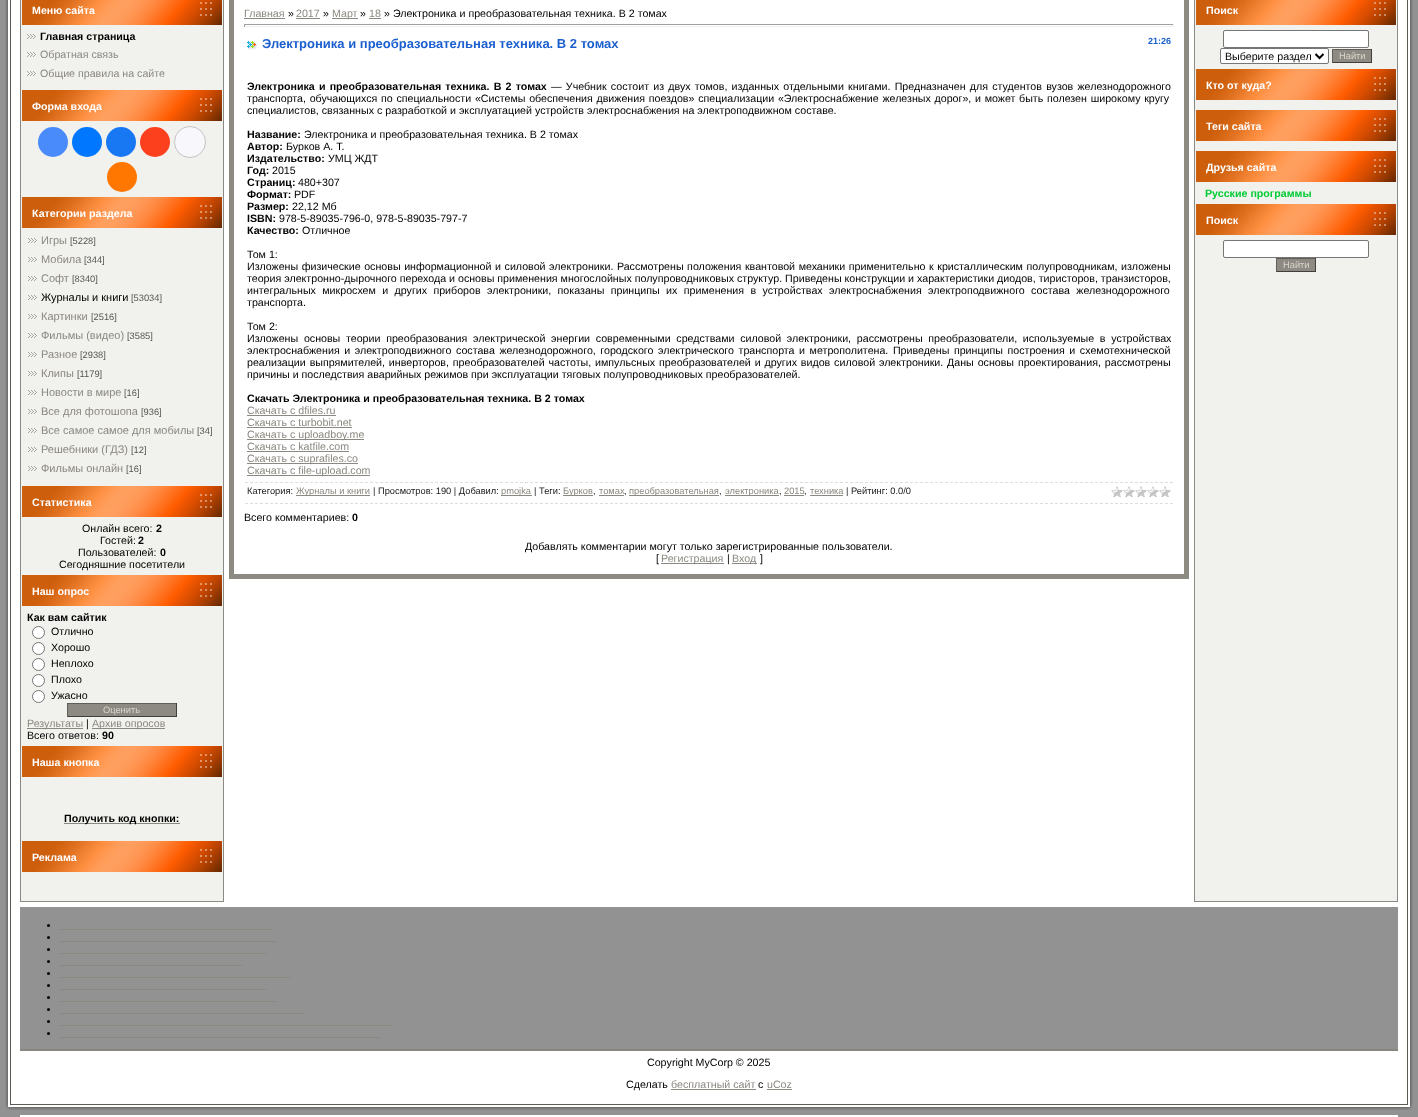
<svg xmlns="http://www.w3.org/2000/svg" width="1418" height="1117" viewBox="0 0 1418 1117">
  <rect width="100%" height="100%" fill="rgb(146,146,146)"/>
  <image x="5" y="0" width="15" height="1095" href="pic1.png"/>
  <rect x="20" y="0" width="1378" height="907" fill="rgb(255,255,255)"/>
  <rect x="20.5" y="-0.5" width="203" height="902" fill="rgb(241,241,237)" stroke="rgb(140,138,130)"/>
  <image x="22" y="0" width="200" height="25" href="pic2.png"/>
  <text x="32" y="14" font-family="Liberation Sans" font-size="10.67" font-weight="bold" fill="rgb(255,255,255)">Меню сайта</text>
  <image x="27" y="34" width="9" height="5" href="pic3.png"/>
  <text x="40" y="40" font-family="Liberation Sans" font-size="10.67" font-weight="bold" fill="rgb(0,0,0)">Главная страница</text>
  <image x="27" y="52" width="9" height="5" href="pic3.png"/>
  <text x="40" y="58" font-family="Liberation Sans" font-size="10.67" fill="rgb(139,136,129)">Обратная связь</text>
  <image x="27" y="71" width="9" height="5" href="pic3.png"/>
  <text x="40" y="77" font-family="Liberation Sans" font-size="10.67" fill="rgb(139,136,129)">Общие правила на сайте</text>
  <image x="22" y="90" width="200" height="31" href="pic4.png"/>
  <text x="32" y="110" font-family="Liberation Sans" font-size="10.67" font-weight="bold" fill="rgb(255,255,255)">Форма входа</text>
  <circle cx="53" cy="142" r="15" fill="rgb(73,139,250)"/>
  <circle cx="87" cy="142" r="15" fill="rgb(0,119,255)"/>
  <circle cx="121" cy="142" r="15" fill="rgb(24,119,242)"/>
  <circle cx="155" cy="142" r="15" fill="rgb(252,63,29)"/>
  <circle cx="190" cy="142" r="15.5" fill="rgb(248,248,252)" stroke="rgb(196,196,196)"/>
  <circle cx="122" cy="177" r="15" fill="rgb(255,119,0)"/>
  <image x="22" y="197" width="200" height="31" href="pic4.png"/>
  <text x="32" y="217" font-family="Liberation Sans" font-size="10.67" font-weight="bold" fill="rgb(255,255,255)">Категории раздела</text>
  <image x="28" y="238" width="9" height="5" href="pic3.png"/>
  <text x="41" y="244" font-family="Liberation Sans" font-size="11" fill="rgb(139,136,129)">Игры</text>
  <text x="70" y="244" font-family="Liberation Sans" font-size="9.3" fill="rgb(85,85,85)">[5228]</text>
  <image x="28" y="257" width="9" height="5" href="pic3.png"/>
  <text x="41" y="263" font-family="Liberation Sans" font-size="11" fill="rgb(139,136,129)">Мобила</text>
  <text x="84" y="263" font-family="Liberation Sans" font-size="9.3" fill="rgb(85,85,85)">[344]</text>
  <image x="28" y="276" width="9" height="5" href="pic3.png"/>
  <text x="41" y="282" font-family="Liberation Sans" font-size="11" fill="rgb(139,136,129)">Софт</text>
  <text x="72" y="282" font-family="Liberation Sans" font-size="9.3" fill="rgb(85,85,85)">[8340]</text>
  <image x="28" y="295" width="9" height="5" href="pic3.png"/>
  <text x="41" y="301" font-family="Liberation Sans" font-size="11" fill="rgb(0,0,0)">Журналы и книги</text>
  <text x="131" y="301" font-family="Liberation Sans" font-size="9.3" fill="rgb(85,85,85)">[53034]</text>
  <image x="28" y="314" width="9" height="5" href="pic3.png"/>
  <text x="41" y="320" font-family="Liberation Sans" font-size="11" fill="rgb(139,136,129)">Картинки</text>
  <text x="91" y="320" font-family="Liberation Sans" font-size="9.3" fill="rgb(85,85,85)">[2516]</text>
  <image x="28" y="333" width="9" height="5" href="pic3.png"/>
  <text x="41" y="339" font-family="Liberation Sans" font-size="11" fill="rgb(139,136,129)">Фильмы (видео)</text>
  <text x="127" y="339" font-family="Liberation Sans" font-size="9.3" fill="rgb(85,85,85)">[3585]</text>
  <image x="28" y="352" width="9" height="5" href="pic3.png"/>
  <text x="41" y="358" font-family="Liberation Sans" font-size="11" fill="rgb(139,136,129)">Разное</text>
  <text x="80" y="358" font-family="Liberation Sans" font-size="9.3" fill="rgb(85,85,85)">[2938]</text>
  <image x="28" y="371" width="9" height="5" href="pic3.png"/>
  <text x="41" y="377" font-family="Liberation Sans" font-size="11" fill="rgb(139,136,129)">Клипы</text>
  <text x="77" y="377" font-family="Liberation Sans" font-size="9.3" fill="rgb(85,85,85)">[1179]</text>
  <image x="28" y="390" width="9" height="5" href="pic3.png"/>
  <text x="41" y="396" font-family="Liberation Sans" font-size="11" fill="rgb(139,136,129)">Новости в мире</text>
  <text x="124" y="396" font-family="Liberation Sans" font-size="9.3" fill="rgb(85,85,85)">[16]</text>
  <image x="28" y="409" width="9" height="5" href="pic3.png"/>
  <text x="41" y="415" font-family="Liberation Sans" font-size="11" fill="rgb(139,136,129)">Все для фотошопа</text>
  <text x="141" y="415" font-family="Liberation Sans" font-size="9.3" fill="rgb(85,85,85)">[936]</text>
  <image x="28" y="428" width="9" height="5" href="pic3.png"/>
  <text x="41" y="434" font-family="Liberation Sans" font-size="11" fill="rgb(139,136,129)">Все самое самое для мобилы</text>
  <text x="197" y="434" font-family="Liberation Sans" font-size="9.3" fill="rgb(85,85,85)">[34]</text>
  <image x="28" y="447" width="9" height="5" href="pic3.png"/>
  <text x="41" y="453" font-family="Liberation Sans" font-size="11" fill="rgb(139,136,129)">Решебники (ГДЗ)</text>
  <text x="131" y="453" font-family="Liberation Sans" font-size="9.3" fill="rgb(85,85,85)">[12]</text>
  <image x="28" y="466" width="9" height="5" href="pic3.png"/>
  <text x="41" y="472" font-family="Liberation Sans" font-size="11" fill="rgb(139,136,129)">Фильмы онлайн</text>
  <text x="126" y="472" font-family="Liberation Sans" font-size="9.3" fill="rgb(85,85,85)">[16]</text>
  <image x="22" y="486" width="200" height="31" href="pic4.png"/>
  <text x="32" y="506" font-family="Liberation Sans" font-size="10.67" font-weight="bold" fill="rgb(255,255,255)">Статистика</text>
  <text x="82" y="532" font-family="Liberation Sans" font-size="10.67" fill="rgb(0,0,0)">Онлайн всего:</text>
  <text x="156" y="532" font-family="Liberation Sans" font-size="10.67" font-weight="bold" fill="rgb(0,0,0)">2</text>
  <text x="100" y="544" font-family="Liberation Sans" font-size="10.67" fill="rgb(0,0,0)">Гостей:</text>
  <text x="138" y="544" font-family="Liberation Sans" font-size="10.67" font-weight="bold" fill="rgb(0,0,0)">2</text>
  <text x="78" y="556" font-family="Liberation Sans" font-size="10.67" fill="rgb(0,0,0)">Пользователей:</text>
  <text x="160" y="556" font-family="Liberation Sans" font-size="10.67" font-weight="bold" fill="rgb(0,0,0)">0</text>
  <text x="59" y="568" font-family="Liberation Sans" font-size="10.67" fill="rgb(0,0,0)">Сегодняшние посетители</text>
  <image x="22" y="575" width="200" height="31" href="pic4.png"/>
  <text x="32" y="595" font-family="Liberation Sans" font-size="10.67" font-weight="bold" fill="rgb(255,255,255)">Наш опрос</text>
  <text x="27" y="621" font-family="Liberation Sans" font-size="10.67" font-weight="bold" fill="rgb(0,0,0)">Как вам сайтик</text>
  <circle cx="38.5" cy="632.5" r="6" fill="rgb(255,255,255)" stroke="rgb(118,118,118)"/>
  <text x="51" y="635" font-family="Liberation Sans" font-size="10.67" fill="rgb(0,0,0)">Отлично</text>
  <circle cx="38.5" cy="648.5" r="6" fill="rgb(255,255,255)" stroke="rgb(118,118,118)"/>
  <text x="51" y="651" font-family="Liberation Sans" font-size="10.67" fill="rgb(0,0,0)">Хорошо</text>
  <circle cx="38.5" cy="664.5" r="6" fill="rgb(255,255,255)" stroke="rgb(118,118,118)"/>
  <text x="51" y="667" font-family="Liberation Sans" font-size="10.67" fill="rgb(0,0,0)">Неплохо</text>
  <circle cx="38.5" cy="680.5" r="6" fill="rgb(255,255,255)" stroke="rgb(118,118,118)"/>
  <text x="51" y="683" font-family="Liberation Sans" font-size="10.67" fill="rgb(0,0,0)">Плохо</text>
  <circle cx="38.5" cy="696.5" r="6" fill="rgb(255,255,255)" stroke="rgb(118,118,118)"/>
  <text x="51" y="699" font-family="Liberation Sans" font-size="10.67" fill="rgb(0,0,0)">Ужасно</text>
  <rect x="68" y="704" width="108" height="12" fill="rgb(141,138,131)"/>
  <rect x="67" y="703" width="110" height="1" fill="rgb(97,94,88)"/>
  <rect x="176" y="703" width="1" height="14" fill="rgb(65,63,59)"/>
  <rect x="67" y="716" width="110" height="1" fill="rgb(65,63,59)"/>
  <rect x="67" y="703" width="1" height="14" fill="rgb(97,94,88)"/>
  <text x="103" y="713" font-family="Liberation Sans" font-size="9.3" fill="rgb(218,215,204)">Оценить</text>
  <rect x="27" y="728" width="56" height="1" fill="rgb(139,136,129)"/>
  <text x="27" y="727" font-family="Liberation Sans" font-size="10.67" fill="rgb(139,136,129)">Результаты</text>
  <text x="86" y="727" font-family="Liberation Sans" font-size="10.67" fill="rgb(0,0,0)">|</text>
  <rect x="92" y="728" width="73" height="1" fill="rgb(139,136,129)"/>
  <text x="92" y="727" font-family="Liberation Sans" font-size="10.67" fill="rgb(139,136,129)">Архив опросов</text>
  <text x="27" y="739" font-family="Liberation Sans" font-size="10.67" fill="rgb(0,0,0)">Всего ответов:</text>
  <text x="102" y="739" font-family="Liberation Sans" font-size="10.67" font-weight="bold" fill="rgb(0,0,0)">90</text>
  <image x="22" y="746" width="200" height="31" href="pic4.png"/>
  <text x="32" y="766" font-family="Liberation Sans" font-size="10.67" font-weight="bold" fill="rgb(255,255,255)">Наша кнопка</text>
  <rect x="64" y="823" width="116" height="1" fill="rgb(139,136,129)"/>
  <text x="64" y="822" font-family="Liberation Sans" font-size="10.67" font-weight="bold" fill="rgb(0,0,0)">Получить код кнопки:</text>
  <image x="22" y="841" width="200" height="31" href="pic4.png"/>
  <text x="32" y="861" font-family="Liberation Sans" font-size="10.67" font-weight="bold" fill="rgb(255,255,255)">Реклама</text>
  <rect x="231.5" y="-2.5" width="955" height="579" fill="none" stroke="rgb(140,138,130)" stroke-width="5"/>
  <text x="244" y="17" font-family="Liberation Sans" font-size="10.67" fill="rgb(139,136,129)">Главная</text>
  <rect x="244" y="18" width="41" height="1" fill="rgb(139,136,129)"/>
  <text x="288" y="17" font-family="Liberation Sans" font-size="10.67" fill="rgb(0,0,0)">»</text>
  <text x="296" y="17" font-family="Liberation Sans" font-size="10.67" fill="rgb(139,136,129)">2017</text>
  <rect x="296" y="18" width="24" height="1" fill="rgb(139,136,129)"/>
  <text x="323" y="17" font-family="Liberation Sans" font-size="10.67" fill="rgb(0,0,0)">»</text>
  <rect x="332" y="18" width="26" height="1" fill="rgb(139,136,129)"/>
  <text x="332" y="17" font-family="Liberation Sans" font-size="10.67" fill="rgb(139,136,129)">Март</text>
  <text x="360" y="17" font-family="Liberation Sans" font-size="10.67" fill="rgb(0,0,0)">»</text>
  <text x="369" y="17" font-family="Liberation Sans" font-size="10.67" fill="rgb(139,136,129)">18</text>
  <rect x="369" y="18" width="12" height="1" fill="rgb(139,136,129)"/>
  <text x="384" y="17" font-family="Liberation Sans" font-size="10.67" fill="rgb(0,0,0)">» Электроника и преобразовательная техника. В 2 томах</text>
  <rect x="244" y="24" width="930" height="1" fill="rgb(159,159,159)"/>
  <rect x="1173" y="24" width="1" height="3" fill="rgb(238,238,238)"/>
  <rect x="244" y="26" width="930" height="1" fill="rgb(238,238,238)"/>
  <rect x="244" y="24" width="1" height="3" fill="rgb(159,159,159)"/>
  <image x="247" y="41" width="11" height="9" href="pic5.png"/>
  <text x="262" y="48" font-family="Liberation Sans" font-size="13" font-weight="bold" fill="rgb(27,95,207)">Электроника и преобразовательная техника. В 2 томах</text>
  <text x="1148" y="44" font-family="Liberation Sans" font-size="9" font-weight="bold" fill="rgb(27,95,207)">21:26</text>
  <text x="247" y="90" word-spacing="1.25" font-family="Liberation Sans" font-size="10.67" font-weight="bold" fill="rgb(0,0,0)">Электроника и преобразовательная техника. В 2 томах</text>
  <g font-family="Liberation Sans" font-size="10.67" fill="rgb(0,0,0)">
    <text x="551" y="90" word-spacing="1.25">— Учебник состоит из двух томов, изданных отдельными книгами. Предназначен для студентов вузов железнодорожного</text>
    <text>
      <tspan x="247" y="102" word-spacing="0.75">транспорта, обучающихся по специальности «Системы обеспечения движения поездов» специализации «Электроснабжение железных дорог», и может быть полезен широкому кругу</tspan>
      <tspan x="247" y="114">специалистов, связанных с разработкой и эксплуатацией устройств электроснабжения на электроподвижном составе.</tspan>
    </text>
  </g>
  <text x="247" y="138" font-family="Liberation Sans" font-size="10.67" font-weight="bold" fill="rgb(0,0,0)">Название:</text>
  <text x="304" y="138" font-family="Liberation Sans" font-size="10.67" fill="rgb(0,0,0)">Электроника и преобразовательная техника. В 2 томах</text>
  <text x="247" y="150" font-family="Liberation Sans" font-size="10.67" font-weight="bold" fill="rgb(0,0,0)">Автор:</text>
  <text x="286" y="150" font-family="Liberation Sans" font-size="10.67" fill="rgb(0,0,0)">Бурков А. Т.</text>
  <text x="247" y="162" font-family="Liberation Sans" font-size="10.67" font-weight="bold" fill="rgb(0,0,0)">Издательство:</text>
  <text x="328" y="162" font-family="Liberation Sans" font-size="10.67" fill="rgb(0,0,0)">УМЦ ЖДТ</text>
  <text x="247" y="174" font-family="Liberation Sans" font-size="10.67" font-weight="bold" fill="rgb(0,0,0)">Год:</text>
  <text x="272" y="174" font-family="Liberation Sans" font-size="10.67" fill="rgb(0,0,0)">2015</text>
  <text x="247" y="186" font-family="Liberation Sans" font-size="10.67" font-weight="bold" fill="rgb(0,0,0)">Страниц:</text>
  <text x="298" y="186" font-family="Liberation Sans" font-size="10.67" fill="rgb(0,0,0)">480+307</text>
  <text x="247" y="198" font-family="Liberation Sans" font-size="10.67" font-weight="bold" fill="rgb(0,0,0)">Формат:</text>
  <text x="294" y="198" font-family="Liberation Sans" font-size="10.67" fill="rgb(0,0,0)">PDF</text>
  <text x="247" y="210" font-family="Liberation Sans" font-size="10.67" font-weight="bold" fill="rgb(0,0,0)">Размер:</text>
  <text x="292" y="210" font-family="Liberation Sans" font-size="10.67" fill="rgb(0,0,0)">22,12 Мб</text>
  <text x="247" y="222" font-family="Liberation Sans" font-size="10.67" font-weight="bold" fill="rgb(0,0,0)">ISBN:</text>
  <text x="279" y="222" font-family="Liberation Sans" font-size="10.67" fill="rgb(0,0,0)">978-5-89035-796-0, 978-5-89035-797-7</text>
  <text x="247" y="234" font-family="Liberation Sans" font-size="10.67" font-weight="bold" fill="rgb(0,0,0)">Качество:</text>
  <g font-family="Liberation Sans" font-size="10.67" fill="rgb(0,0,0)">
    <text x="302" y="234">Отличное</text>
    <text>
      <tspan x="247" y="258">Том 1:</tspan>
      <tspan x="247" y="270" word-spacing="0.6">Изложены физические основы информационной и силовой электроники. Рассмотрены положения квантовой механики применительно к кристаллическим полупроводникам, изложены</tspan>
      <tspan x="247" y="282">теория электронно-дырочного перехода и основы применения многослойных полупроводниковых структур. Приведены конструкции и характеристики диодов, тиристоров, транзисторов,</tspan>
      <tspan x="247" y="294" word-spacing="3.4">интегральных микросхем и других приборов электроники, показаны принципы их применения в устройствах электроснабжения электроподвижного состава железнодорожного</tspan>
      <tspan x="247" y="306">транспорта.</tspan>
    </text>
    <text>
      <tspan x="247" y="330">Том 2:</tspan>
      <tspan x="247" y="342" word-spacing="2.75">Изложены основы теории преобразования электрической энергии современными средствами силовой электроники, рассмотрены преобразователи, используемые в устройствах</tspan>
      <tspan x="247" y="354" word-spacing="1.6">электроснабжения и электроподвижного состава железнодорожного, городского электрического транспорта и метрополитена. Приведены принципы построения и схемотехнической</tspan>
      <tspan x="247" y="366" word-spacing="0.9">реализации выпрямителей, инверторов, преобразователей частоты, импульсных преобразователей и других видов силовой электроники. Даны основы проектирования, рассмотрены</tspan>
      <tspan x="247" y="378">причины и последствия аварийных режимов при эксплуатации тяговых полупроводниковых преобразователей.</tspan>
    </text>
  </g>
  <text x="247" y="402" font-family="Liberation Sans" font-size="10.67" font-weight="bold" fill="rgb(0,0,0)">Скачать Электроника и преобразовательная техника. В 2 томах</text>
  <text x="247" y="414" font-family="Liberation Sans" font-size="10.67" fill="rgb(139,136,129)">Скачать с dfiles.ru</text>
  <rect x="247" y="415" width="89" height="1" fill="rgb(139,136,129)"/>
  <text x="247" y="426" font-family="Liberation Sans" font-size="10.67" fill="rgb(139,136,129)">Скачать с turbobit.net</text>
  <rect x="247" y="427" width="105" height="1" fill="rgb(139,136,129)"/>
  <rect x="247" y="439" width="117" height="1" fill="rgb(139,136,129)"/>
  <g font-family="Liberation Sans" font-size="10.67" fill="rgb(139,136,129)">
    <text>
      <tspan x="247" y="438">Скачать с uploadboy.me</tspan>
      <tspan x="247" y="450">Скачать с katfile.com</tspan>
    </text>
  </g>
  <rect x="247" y="451" width="102" height="1" fill="rgb(139,136,129)"/>
  <rect x="247" y="463" width="111" height="1" fill="rgb(139,136,129)"/>
  <text x="247" y="462" font-family="Liberation Sans" font-size="10.67" fill="rgb(139,136,129)">Скачать с suprafiles.co</text>
  <rect x="247" y="475" width="123" height="1" fill="rgb(139,136,129)"/>
  <text x="247" y="474" font-family="Liberation Sans" font-size="10.67" fill="rgb(139,136,129)">Скачать с file-upload.com</text>
  <path d="M245 482.5H1173" fill="none" stroke="rgb(221,221,221)" stroke-dasharray="3 2"/>
  <path d="M245 503.5H1173" fill="none" stroke="rgb(221,221,221)" stroke-dasharray="3 2"/>
  <text x="247" y="494" font-family="Liberation Sans" font-size="9.3" fill="rgb(26,26,26)">Категория:</text>
  <rect x="296" y="495" width="74" height="1" fill="rgb(139,136,129)"/>
  <text x="296" y="494" font-family="Liberation Sans" font-size="9.3" fill="rgb(139,136,129)">Журналы и книги</text>
  <text x="373" y="494" font-family="Liberation Sans" font-size="9.3" fill="rgb(26,26,26)">| Просмотров: 190 | Добавил:</text>
  <rect x="501" y="495" width="31" height="1" fill="rgb(139,136,129)"/>
  <text x="501" y="494" font-family="Liberation Sans" font-size="9.3" fill="rgb(139,136,129)">pmojka</text>
  <text x="534" y="494" font-family="Liberation Sans" font-size="9.3" fill="rgb(26,26,26)">| Теги:</text>
  <rect x="563" y="495" width="30" height="1" fill="rgb(139,136,129)"/>
  <text x="563" y="494" font-family="Liberation Sans" font-size="9.3" fill="rgb(139,136,129)">Бурков</text>
  <text x="593" y="494" font-family="Liberation Sans" font-size="9.3" fill="rgb(26,26,26)">,</text>
  <text x="599" y="494" font-family="Liberation Sans" font-size="9.3" fill="rgb(139,136,129)">томах</text>
  <text x="624" y="494" font-family="Liberation Sans" font-size="9.3" fill="rgb(26,26,26)">,</text>
  <rect x="599" y="495" width="25" height="1" fill="rgb(139,136,129)"/>
  <rect x="629" y="495" width="90" height="1" fill="rgb(139,136,129)"/>
  <text x="629" y="494" font-family="Liberation Sans" font-size="9.3" fill="rgb(139,136,129)">преобразовательная</text>
  <text x="719" y="494" font-family="Liberation Sans" font-size="9.3" fill="rgb(26,26,26)">,</text>
  <rect x="725" y="495" width="54" height="1" fill="rgb(139,136,129)"/>
  <text x="725" y="494" font-family="Liberation Sans" font-size="9.3" fill="rgb(139,136,129)">электроника</text>
  <text x="779" y="494" font-family="Liberation Sans" font-size="9.3" fill="rgb(26,26,26)">,</text>
  <text x="784" y="494" font-family="Liberation Sans" font-size="9.3" fill="rgb(139,136,129)">2015</text>
  <text x="804" y="494" font-family="Liberation Sans" font-size="9.3" fill="rgb(26,26,26)">,</text>
  <rect x="784" y="495" width="20" height="1" fill="rgb(139,136,129)"/>
  <rect x="810" y="495" width="33" height="1" fill="rgb(139,136,129)"/>
  <text x="810" y="494" font-family="Liberation Sans" font-size="9.3" fill="rgb(139,136,129)">техника</text>
  <text x="846" y="494" font-family="Liberation Sans" font-size="9.3" fill="rgb(26,26,26)">| Рейтинг: 0.0/0</text>
  <image x="1111" y="486" width="60" height="12" href="pic6.png"/>
  <text x="244" y="521" font-family="Liberation Sans" font-size="10.67" fill="rgb(0,0,0)">Всего комментариев:</text>
  <text x="352" y="521" font-family="Liberation Sans" font-size="10.67" font-weight="bold" fill="rgb(0,0,0)">0</text>
  <g font-family="Liberation Sans" font-size="10.67" fill="rgb(0,0,0)">
    <text x="525" y="550">Добавлять комментарии могут только зарегистрированные пользователи.</text>
    <text x="656" y="562">[</text>
  </g>
  <rect x="661" y="563" width="63" height="1" fill="rgb(139,136,129)"/>
  <text x="661" y="562" font-family="Liberation Sans" font-size="10.67" fill="rgb(139,136,129)">Регистрация</text>
  <text x="727" y="562" font-family="Liberation Sans" font-size="10.67" fill="rgb(0,0,0)">|</text>
  <rect x="732" y="563" width="25" height="1" fill="rgb(139,136,129)"/>
  <text x="732" y="562" font-family="Liberation Sans" font-size="10.67" fill="rgb(139,136,129)">Вход</text>
  <text x="760" y="562" font-family="Liberation Sans" font-size="10.67" fill="rgb(0,0,0)">]</text>
  <rect x="1194.5" y="-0.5" width="203" height="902" fill="rgb(241,241,237)" stroke="rgb(140,138,130)"/>
  <image x="1196" y="0" width="200" height="25" href="pic2.png"/>
  <text x="1206" y="14" font-family="Liberation Sans" font-size="10.67" font-weight="bold" fill="rgb(255,255,255)">Поиск</text>
  <rect x="1223.5" y="30.5" width="145" height="17" rx="1.5" fill="rgb(255,255,255)" stroke="rgb(118,118,118)"/>
  <rect x="1220.5" y="48.5" width="108" height="15" rx="1.5" fill="rgb(255,255,255)" stroke="rgb(118,118,118)"/>
  <path d="M1315.5 54L1319.5 58L1323.5 54" fill="none" stroke="rgb(0,0,0)" stroke-width="2"/>
  <text x="1225" y="60" font-family="Liberation Sans" font-size="10.67" fill="rgb(0,0,0)">Выберите раздел</text>
  <rect x="1333" y="50" width="38" height="12" fill="rgb(141,138,131)"/>
  <rect x="1332" y="49" width="40" height="1" fill="rgb(97,94,88)"/>
  <rect x="1371" y="49" width="1" height="14" fill="rgb(65,63,59)"/>
  <rect x="1332" y="62" width="40" height="1" fill="rgb(65,63,59)"/>
  <rect x="1332" y="49" width="1" height="14" fill="rgb(97,94,88)"/>
  <text x="1339" y="59" font-family="Liberation Sans" font-size="9.3" fill="rgb(218,215,204)">Найти</text>
  <image x="1196" y="69" width="200" height="31" href="pic4.png"/>
  <text x="1206" y="89" font-family="Liberation Sans" font-size="10.67" font-weight="bold" fill="rgb(255,255,255)">Кто от куда?</text>
  <image x="1196" y="110" width="200" height="31" href="pic4.png"/>
  <text x="1206" y="130" font-family="Liberation Sans" font-size="10.67" font-weight="bold" fill="rgb(255,255,255)">Теги сайта</text>
  <image x="1196" y="151" width="200" height="31" href="pic4.png"/>
  <text x="1206" y="171" font-family="Liberation Sans" font-size="10.67" font-weight="bold" fill="rgb(255,255,255)">Друзья сайта</text>
  <text x="1205" y="197" font-family="Liberation Sans" font-size="10.67" font-weight="bold" fill="rgb(0,204,51)">Русские программы</text>
  <image x="1196" y="204" width="200" height="31" href="pic4.png"/>
  <text x="1206" y="224" font-family="Liberation Sans" font-size="10.67" font-weight="bold" fill="rgb(255,255,255)">Поиск</text>
  <rect x="1223.5" y="240.5" width="145" height="17" rx="1.5" fill="rgb(255,255,255)" stroke="rgb(118,118,118)"/>
  <rect x="1277" y="259" width="38" height="12" fill="rgb(141,138,131)"/>
  <rect x="1276" y="258" width="40" height="1" fill="rgb(97,94,88)"/>
  <rect x="1315" y="258" width="1" height="14" fill="rgb(65,63,59)"/>
  <rect x="1276" y="271" width="40" height="1" fill="rgb(65,63,59)"/>
  <rect x="1276" y="258" width="1" height="14" fill="rgb(97,94,88)"/>
  <text x="1283" y="268" font-family="Liberation Sans" font-size="9.3" fill="rgb(218,215,204)">Найти</text>
  <circle cx="48.5" cy="925.5" r="1.5" fill="rgb(0,0,0)"/>
  <rect x="60" y="929" width="212" height="1" fill="rgb(139,136,129)"/>
  <circle cx="48.5" cy="937.5" r="1.5" fill="rgb(0,0,0)"/>
  <rect x="60" y="941" width="216" height="1" fill="rgb(139,136,129)"/>
  <circle cx="48.5" cy="949.5" r="1.5" fill="rgb(0,0,0)"/>
  <rect x="60" y="953" width="206" height="1" fill="rgb(139,136,129)"/>
  <circle cx="48.5" cy="961.5" r="1.5" fill="rgb(0,0,0)"/>
  <rect x="60" y="965" width="182" height="1" fill="rgb(139,136,129)"/>
  <circle cx="48.5" cy="973.5" r="1.5" fill="rgb(0,0,0)"/>
  <rect x="60" y="977" width="230" height="1" fill="rgb(139,136,129)"/>
  <circle cx="48.5" cy="985.5" r="1.5" fill="rgb(0,0,0)"/>
  <rect x="60" y="989" width="206" height="1" fill="rgb(139,136,129)"/>
  <circle cx="48.5" cy="997.5" r="1.5" fill="rgb(0,0,0)"/>
  <rect x="60" y="1001" width="217" height="1" fill="rgb(139,136,129)"/>
  <circle cx="48.5" cy="1009.5" r="1.5" fill="rgb(0,0,0)"/>
  <rect x="60" y="1013" width="244" height="1" fill="rgb(139,136,129)"/>
  <circle cx="48.5" cy="1021.5" r="1.5" fill="rgb(0,0,0)"/>
  <rect x="60" y="1025" width="333" height="1" fill="rgb(139,136,129)"/>
  <circle cx="48.5" cy="1033.5" r="1.5" fill="rgb(0,0,0)"/>
  <rect x="60" y="1037" width="321" height="1" fill="rgb(139,136,129)"/>
  <rect x="20" y="1049" width="1378" height="2" fill="rgb(137,134,128)"/>
  <rect x="20" y="1051" width="1378" height="44" fill="rgb(255,255,255)"/>
  <g font-family="Liberation Sans" font-size="10.67" fill="rgb(0,0,0)">
    <text x="647" y="1066">Copyright MyCorp © 2025</text>
    <text x="626" y="1088">Сделать</text>
  </g>
  <text x="671" y="1088" font-family="Liberation Sans" font-size="10.67" fill="rgb(139,136,129)">бесплатный сайт</text>
  <rect x="671" y="1089" width="85" height="1" fill="rgb(139,136,129)"/>
  <text x="758" y="1088" font-family="Liberation Sans" font-size="10.67" fill="rgb(0,0,0)">с</text>
  <text x="767" y="1088" font-family="Liberation Sans" font-size="10.67" fill="rgb(139,136,129)">uCoz</text>
  <rect x="767" y="1089" width="25" height="1" fill="rgb(139,136,129)"/>
  <image x="1398" y="0" width="15" height="1095" href="pic7.png"/>
  <image x="5" y="1095" width="15" height="15" href="pic8.png"/>
  <image x="20" y="1095" width="1378" height="22" href="pic9.png"/>
  <image x="1398" y="1095" width="15" height="15" href="pic10.png"/>
</svg>
